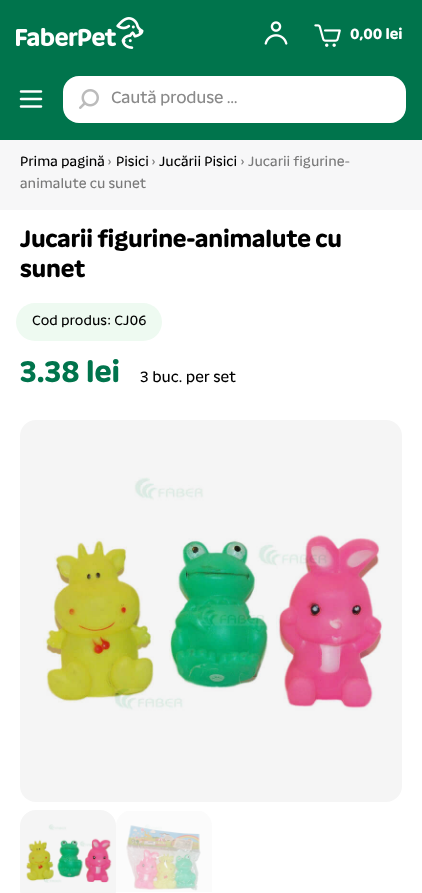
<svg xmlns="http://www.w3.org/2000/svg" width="422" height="893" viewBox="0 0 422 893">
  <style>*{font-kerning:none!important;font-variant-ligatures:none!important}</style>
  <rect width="100%" height="100%" fill="rgb(255,255,255)"/>
  <rect x="0" y="0" width="422" height="140" fill="rgb(0,116,76)"/>
  <image x="16" y="17" width="128" height="32" href="pic1.png"/>
  <image x="264" y="21" width="24" height="24" href="pic2.png"/>
  <image x="314" y="24" width="27" height="23" href="pic3.png"/>
  <text x="350" y="39" font-family="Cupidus" font-size="16" font-weight="bold" fill="rgb(255,255,255)">0,00 lei</text>
  <image x="19" y="90" width="24" height="18" href="pic4.png"/>
  <rect x="63" y="76" width="343" height="47" rx="16" fill="rgb(255,255,255)"/>
  <image x="79" y="89" width="20" height="20" href="pic5.png"/>
  <text x="111" y="103" font-family="Cupidus" font-size="17.5" letter-spacing="-0.25" fill="rgb(138,138,138)">Caută produse ...</text>
  <rect x="0" y="140" width="422" height="70" fill="rgb(247,247,248)"/>
  <text x="20" y="166" font-family="Cupidus" font-size="14.5" fill="rgb(0,0,0)">Prima pagină</text>
  <text x="107" y="166" font-family="Cupidus" font-size="14.5" fill="rgb(122,122,122)">›</text>
  <text x="116" y="166" font-family="Cupidus" font-size="14.5" fill="rgb(0,0,0)">Pisici</text>
  <text x="151" y="166" font-family="Cupidus" font-size="14.5" fill="rgb(122,122,122)">›</text>
  <text x="159" y="166" font-family="Cupidus" font-size="14.5" fill="rgb(0,0,0)">Jucării Pisici</text>
  <g font-family="Cupidus" font-size="14.5" fill="rgb(122,122,122)">
    <text x="240" y="166">› Jucarii figurine-</text>
    <text x="20" y="188">animalute cu sunet</text>
  </g>
  <g font-family="Cupidus" font-size="25.6" font-weight="bold" letter-spacing="-0.25" fill="rgb(0,0,0)">
    <text>
      <tspan x="20" y="247">Jucarii figurine-animalute cu</tspan>
      <tspan x="20" y="277">sunet</tspan>
    </text>
  </g>
  <rect x="16" y="303" width="146" height="38" rx="19" fill="rgb(238,250,241)"/>
  <text x="32" y="325" font-family="Cupidus" font-size="14.5" fill="rgb(0,0,0)">Cod produs: CJ06</text>
  <text x="20" y="382" font-family="Cupidus" font-size="32" font-weight="bold" fill="rgb(0,116,76)">3.38 lei</text>
  <text x="140" y="382" font-family="Cupidus" font-size="16" fill="rgb(0,0,0)">3 buc. per set</text>
  <image x="20" y="420" width="382" height="382" href="pic6.png"/>
  <image x="20" y="810" width="96" height="83" href="pic7.png"/>
  <image x="116" y="811" width="96" height="81" href="pic8.png"/>
</svg>
